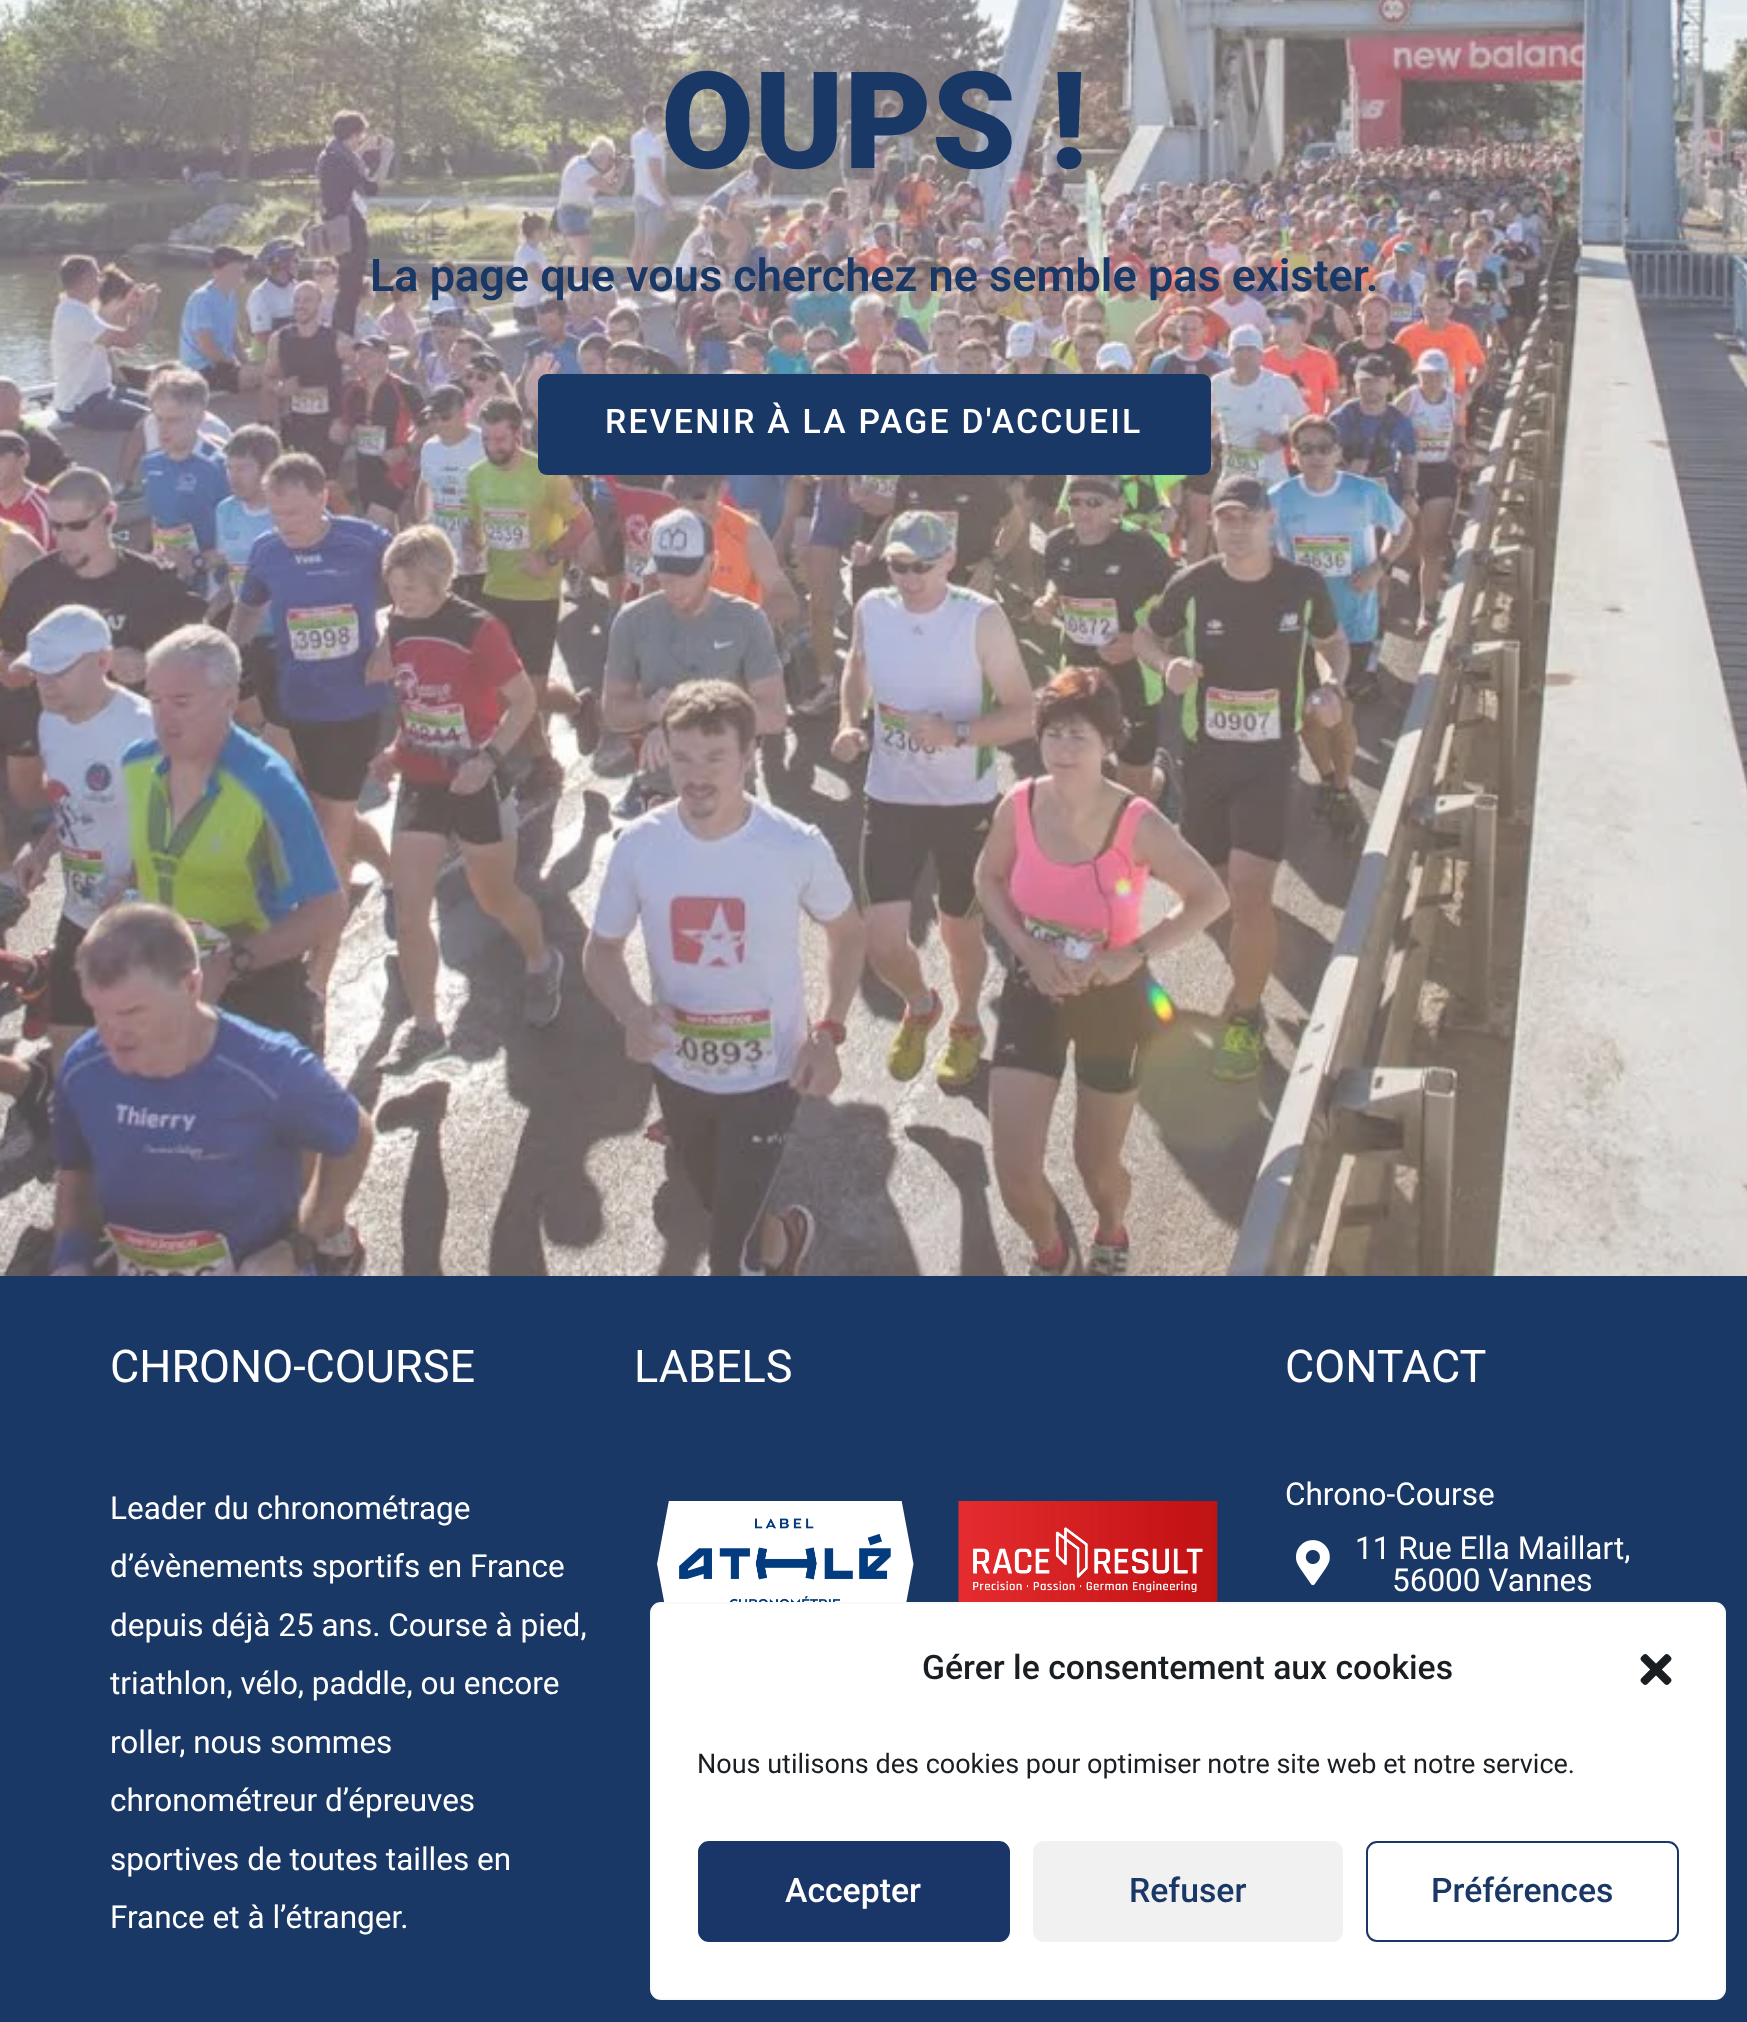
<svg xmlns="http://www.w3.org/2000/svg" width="1747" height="2022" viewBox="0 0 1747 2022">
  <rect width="100%" height="100%" fill="rgb(255,255,255)"/>
  <image x="0" y="0" width="1747" height="1276" href="pic1.png"/>
  <text x="661" y="168" font-family="Roboto" font-size="135" font-weight="900" fill="rgb(26,56,102)">OUPS !</text>
  <text x="370" y="291" font-family="Roboto" font-size="45" font-weight="600" fill="rgb(26,56,102)">La page que vous cherchez ne semble pas exister.</text>
  <rect x="538" y="374" width="673" height="101" rx="9" fill="rgb(26,56,102)"/>
  <text x="605" y="433" font-family="Roboto" font-size="33.75" font-weight="500" letter-spacing="2.25" fill="rgb(255,255,255)">REVENIR À LA PAGE D'ACCUEIL</text>
  <rect x="0" y="1276" width="1747" height="746" fill="rgb(26,56,102)"/>
  <text x="110" y="1382" font-family="Roboto" font-size="45" fill="rgb(255,255,255)">CHRONO-COURSE</text>
  <g font-family="Roboto" font-size="31.5" fill="rgb(255,255,255)">
    <text>
      <tspan x="110" y="1519">Leader du chronométrage</tspan>
      <tspan x="110" y="1577">d’évènements sportifs en France</tspan>
      <tspan x="110" y="1636">depuis déjà 25 ans. Course à pied,</tspan>
      <tspan x="110" y="1694">triathlon, vélo, paddle, ou encore</tspan>
      <tspan x="110" y="1753">roller, nous sommes</tspan>
      <tspan x="110" y="1811">chronométreur d’épreuves</tspan>
      <tspan x="110" y="1870">sportives de toutes tailles en</tspan>
      <tspan x="110" y="1928">France et à l’étranger.</tspan>
    </text>
  </g>
  <text x="634" y="1382" font-family="Roboto" font-size="45" fill="rgb(255,255,255)">LABELS</text>
  <image x="657" y="1501" width="257" height="101" href="pic2.png"/>
  <image x="958" y="1501" width="260" height="101" href="pic3.png"/>
  <text x="1285" y="1382" font-family="Roboto" font-size="45" fill="rgb(255,255,255)">CONTACT</text>
  <text x="1285" y="1505" font-family="Roboto" font-size="31.5" fill="rgb(255,255,255)">Chrono-Course</text>
  <image x="1296" y="1540" width="34" height="46" href="pic4.png"/>
  <g font-family="Roboto" font-size="31.5" fill="rgb(255,255,255)">
    <text x="1355" y="1559">11 Rue Ella Maillart,</text>
    <text x="1392" y="1591">56000 Vannes</text>
  </g>
  <rect x="651" y="1603" width="1074" height="396" rx="10" fill="rgb(255,255,255)" stroke="rgb(249,249,249)" stroke-width="2"/>
  <text x="922" y="1679" font-family="Roboto" font-size="33.75" font-weight="500" fill="rgb(25,30,35)">Gérer le consentement aux cookies</text>
  <image x="1640" y="1654" width="32" height="31" href="pic5.png"/>
  <text x="697" y="1773" font-family="Roboto" font-size="27" fill="rgb(25,30,35)">Nous utilisons des cookies pour optimiser notre site web et notre service.</text>
  <rect x="699" y="1842" width="310" height="99" rx="10" fill="rgb(26,54,104)" stroke="rgb(26,54,104)" stroke-width="2"/>
  <text x="785" y="1902" font-family="Roboto" font-size="33.75" font-weight="500" fill="rgb(255,255,255)">Accepter</text>
  <rect x="1034" y="1842" width="308" height="99" rx="10" fill="rgb(241,241,241)" stroke="rgb(241,241,241)" stroke-width="2"/>
  <text x="1129" y="1902" font-family="Roboto" font-size="33.75" font-weight="500" fill="rgb(26,56,102)">Refuser</text>
  <rect x="1367" y="1842" width="311" height="99" rx="10" fill="none" stroke="rgb(26,54,104)" stroke-width="2"/>
  <text x="1431" y="1902" font-family="Roboto" font-size="33.75" font-weight="500" fill="rgb(26,56,102)">Préférences</text>
</svg>
